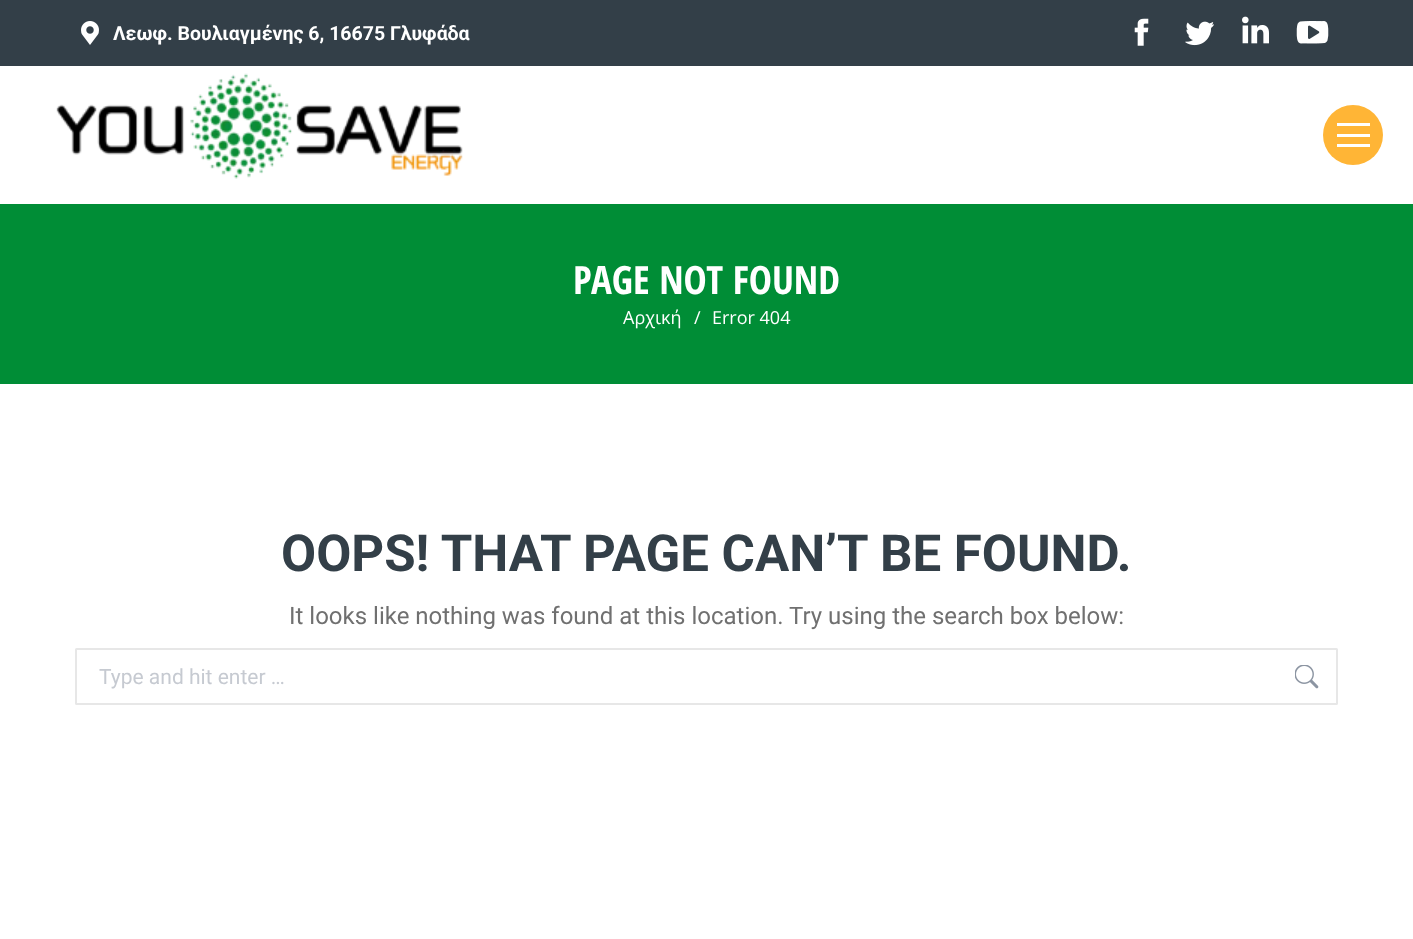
<svg xmlns="http://www.w3.org/2000/svg" width="1413" height="939" viewBox="0 0 1413 939">
  <rect width="100%" height="100%" fill="rgb(255,255,255)"/>
  <rect x="0" y="0" width="1413" height="66" fill="rgb(51,63,72)"/>
  <image x="81" y="21" width="18" height="24" href="pic1.png"/>
  <text x="113" y="40" font-family="Roboto" font-size="19.5" font-weight="bold" fill="rgb(255,255,255)">Λεωφ. Βουλιαγμένης 6, 16675 Γλυφάδα</text>
  <image x="1134" y="18" width="15" height="28" href="pic2.png"/>
  <image x="1185" y="21" width="29" height="25" href="pic3.png"/>
  <image x="1242" y="16" width="27" height="28" href="pic4.png"/>
  <image x="1296" y="21" width="33" height="23" href="pic5.png"/>
  <image x="56" y="73" width="407" height="106" href="pic6.png"/>
  <circle cx="1353" cy="135" r="30" fill="rgb(255,181,54)"/>
  <rect x="1337" y="123" width="33" height="3" fill="rgb(255,255,255)"/>
  <rect x="1337" y="134" width="33" height="3" fill="rgb(255,255,255)"/>
  <rect x="1337" y="144" width="33" height="3" fill="rgb(255,255,255)"/>
  <rect x="0" y="204" width="1413" height="180" fill="rgb(0,141,54)"/>
  <text x="573" y="294" font-family="Open Sans Condensed" font-size="39" font-weight="bold" fill="rgb(255,255,255)">PAGE NOT FOUND</text>
  <g font-family="Open Sans" font-size="18" fill="rgb(255,255,255)">
    <text x="623" y="324">Αρχική</text>
    <text x="694" y="324">/</text>
    <text x="712" y="324">Error 404</text>
  </g>
  <text x="281" y="571" font-family="Roboto" font-size="51" font-weight="bold" fill="rgb(51,63,72)">OOPS! THAT PAGE CAN’T BE FOUND.</text>
  <text x="289" y="624" font-family="Roboto" font-size="24" fill="rgb(112,112,112)">It looks like nothing was found at this location. Try using the search box below:</text>
  <rect x="76" y="649" width="1261" height="55" rx="0.5" fill="none" stroke="rgb(231,231,231)" stroke-width="2"/>
  <text x="99" y="684" font-family="Roboto" font-size="21" fill="rgb(198,202,209)">Type and hit enter …</text>
  <image x="1295" y="665" width="24" height="24" href="pic7.png"/>
</svg>
